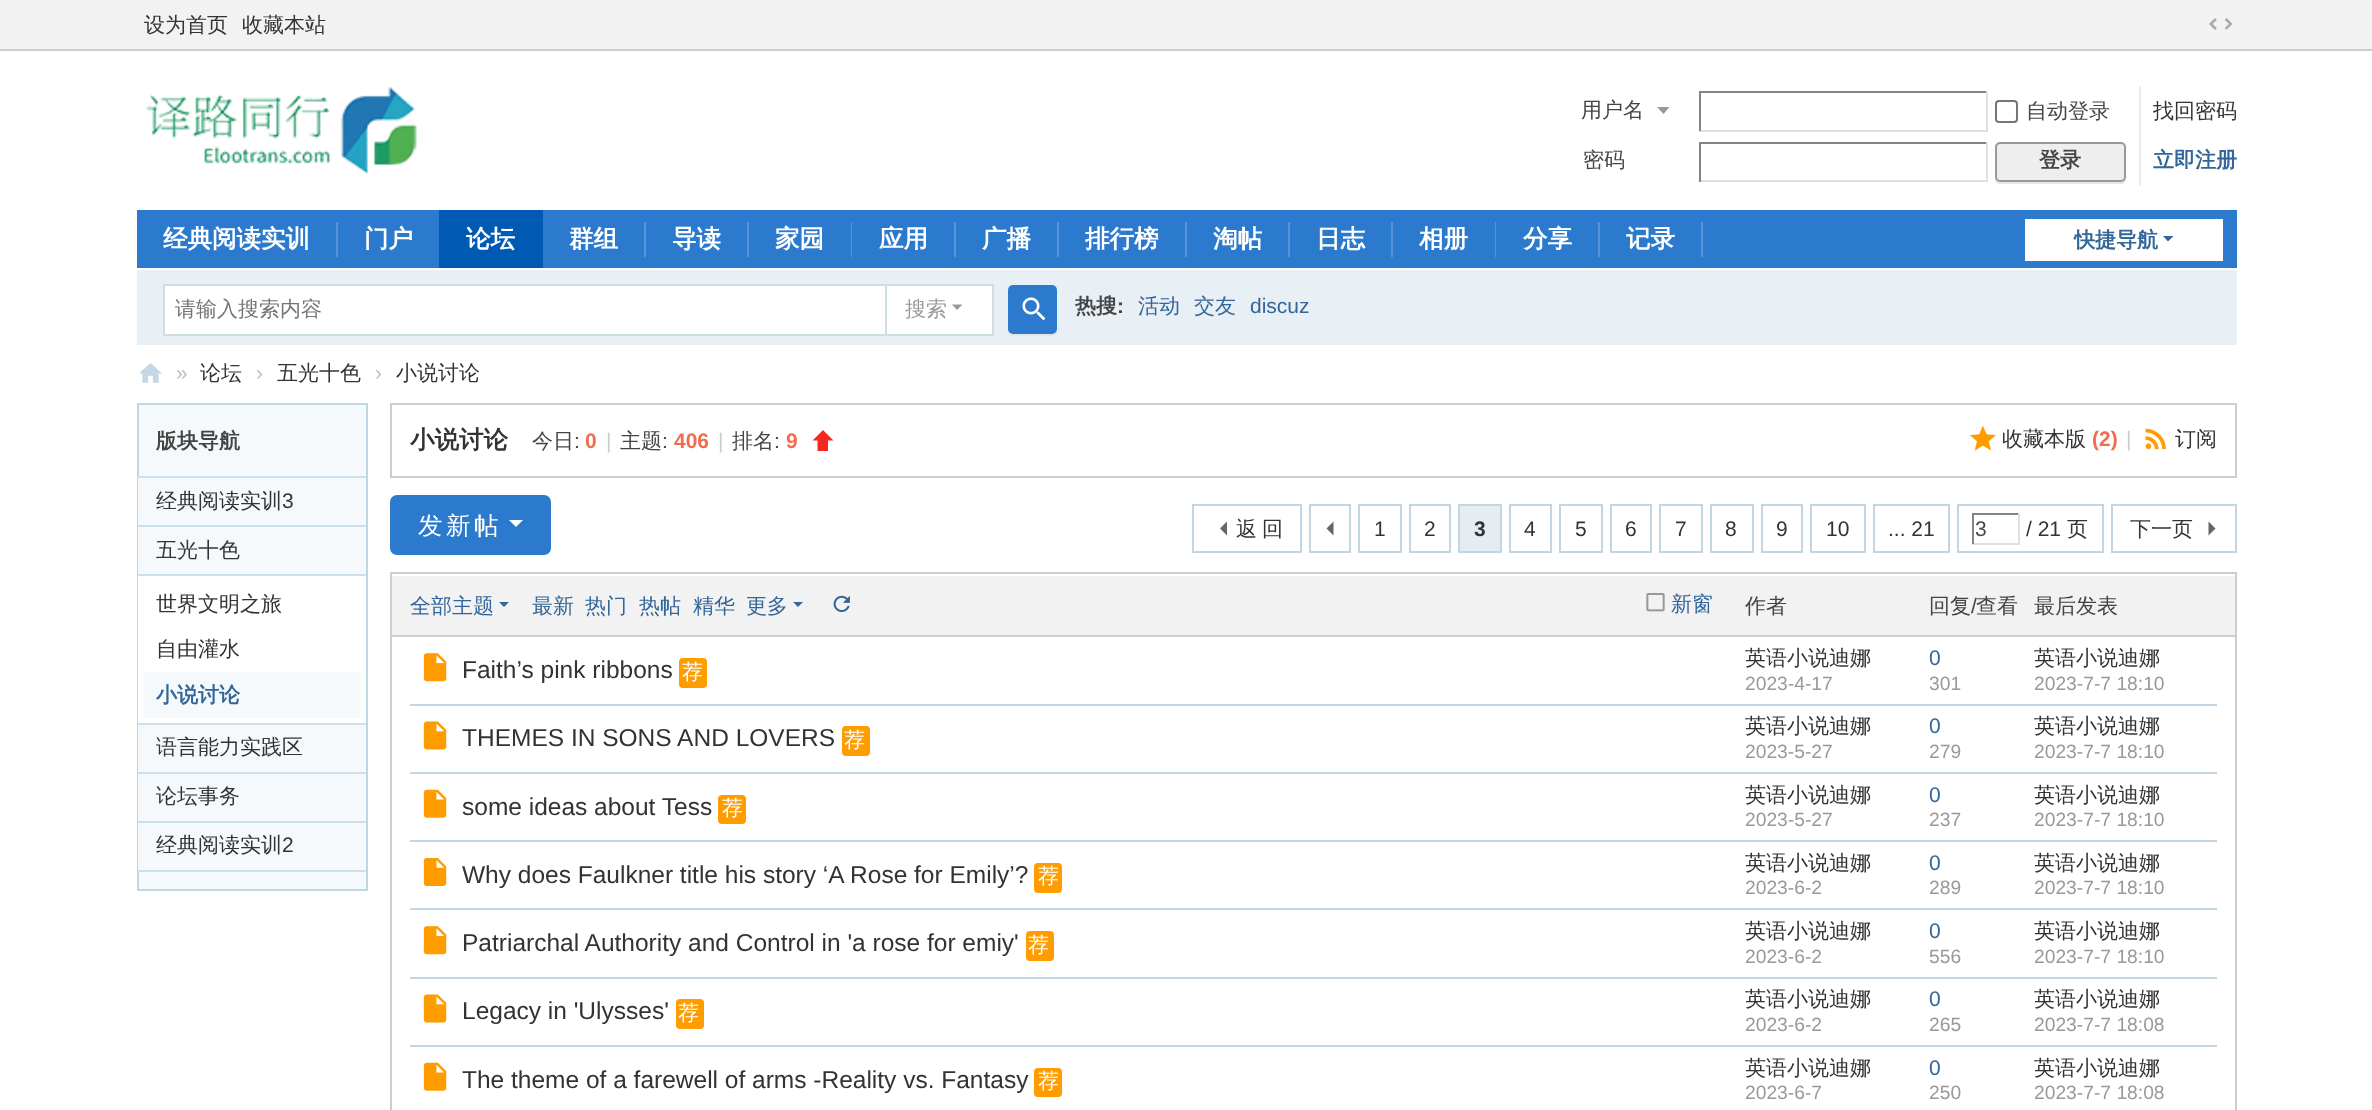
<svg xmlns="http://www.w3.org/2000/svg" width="2372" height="1110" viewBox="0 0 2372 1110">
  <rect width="100%" height="100%" fill="rgb(255,255,255)"/>
  <rect x="0" y="0" width="2372" height="49" fill="rgb(242,242,242)"/>
  <rect x="0" y="49" width="2372" height="2" fill="rgb(205,205,205)"/>
  <g font-family="WenQuanYi Zen Hei" font-size="21" font-weight="500" fill="rgb(51,51,51)">
    <text x="144" y="32">设为首页</text>
    <text x="242" y="32">收藏本站</text>
  </g>
  <image x="2209" y="18" width="24" height="12" href="pic1.png"/>
  <image x="145" y="86" width="272" height="88" href="pic2.png"/>
  <path d="M1669.5 107H1657L1663.5 114Z" fill="rgb(153,153,153)"/>
  <text x="1581" y="117" font-family="WenQuanYi Zen Hei" font-size="21" font-weight="500" fill="rgb(68,68,68)">用户名</text>
  <rect x="1699" y="91" width="289" height="2" fill="rgb(132,132,132)"/>
  <rect x="1986" y="91" width="2" height="40" fill="rgb(224,224,224)"/>
  <rect x="1699" y="130" width="289" height="2" fill="rgb(224,224,224)"/>
  <rect x="1699" y="91" width="2" height="40" fill="rgb(132,132,132)"/>
  <rect x="1996" y="101" width="21" height="21" rx="3" fill="none" stroke="rgb(118,118,118)" stroke-width="2"/>
  <text x="2026" y="118" font-family="WenQuanYi Zen Hei" font-size="21" font-weight="500" fill="rgb(68,68,68)">自动登录</text>
  <text x="2153" y="118" font-family="WenQuanYi Zen Hei" font-size="21" font-weight="500" fill="rgb(51,51,51)">找回密码</text>
  <text x="1583" y="167" font-family="WenQuanYi Zen Hei" font-size="21" font-weight="500" fill="rgb(68,68,68)">密码</text>
  <rect x="1699" y="142" width="289" height="2" fill="rgb(132,132,132)"/>
  <rect x="1986" y="142" width="2" height="40" fill="rgb(224,224,224)"/>
  <rect x="1699" y="180" width="289" height="2" fill="rgb(224,224,224)"/>
  <rect x="1699" y="142" width="2" height="40" fill="rgb(132,132,132)"/>
  <rect x="2139" y="86" width="2" height="100" fill="rgb(229,237,242)"/>
  <path d="M1995 177V179C1995 182 1997 184 2000 184H2121C2124 184 2126 182 2126 179V178C2125 180 2123 182 2121 182H2000C1997 182 1995 180 1995 177Z" fill="rgb(229,229,229)"/>
  <rect x="1996" y="143" width="129" height="38" rx="4" fill="rgb(238,238,238)" stroke="rgb(153,153,153)" stroke-width="2"/>
  <text x="2039" y="167" font-family="WenQuanYi Zen Hei" font-size="21" font-weight="bold" fill="rgb(68,68,68)">登录</text>
  <text x="2153" y="167" font-family="WenQuanYi Zen Hei" font-size="21" font-weight="bold" fill="rgb(51,102,153)">立即注册</text>
  <rect x="137" y="210" width="2100" height="58" fill="rgb(43,122,205)"/>
  <rect x="336" y="222" width="2" height="35" fill="rgb(85,149,215)"/>
  <g font-family="WenQuanYi Zen Hei" font-size="24.5" font-weight="bold" fill="rgb(255,255,255)">
    <text x="163" y="247">经典阅读实训</text>
    <text x="364" y="247">门户</text>
  </g>
  <rect x="439" y="210" width="104" height="58" fill="rgb(0,90,180)"/>
  <text x="466" y="247" font-family="WenQuanYi Zen Hei" font-size="24.5" font-weight="bold" fill="rgb(255,255,255)">论坛</text>
  <rect x="644" y="222" width="2" height="35" fill="rgb(85,149,215)"/>
  <text x="569" y="247" font-family="WenQuanYi Zen Hei" font-size="24.5" font-weight="bold" fill="rgb(255,255,255)">群组</text>
  <rect x="747" y="222" width="2" height="35" fill="rgb(85,149,215)"/>
  <text x="672" y="247" font-family="WenQuanYi Zen Hei" font-size="24.5" font-weight="bold" fill="rgb(255,255,255)">导读</text>
  <rect x="851" y="222" width="1" height="35" fill="rgb(85,149,215)"/>
  <text x="775" y="247" font-family="WenQuanYi Zen Hei" font-size="24.5" font-weight="bold" fill="rgb(255,255,255)">家园</text>
  <rect x="954" y="222" width="2" height="35" fill="rgb(85,149,215)"/>
  <text x="879" y="247" font-family="WenQuanYi Zen Hei" font-size="24.5" font-weight="bold" fill="rgb(255,255,255)">应用</text>
  <rect x="1057" y="222" width="2" height="35" fill="rgb(85,149,215)"/>
  <text x="982" y="247" font-family="WenQuanYi Zen Hei" font-size="24.5" font-weight="bold" fill="rgb(255,255,255)">广播</text>
  <rect x="1185" y="222" width="2" height="35" fill="rgb(85,149,215)"/>
  <text x="1085" y="247" font-family="WenQuanYi Zen Hei" font-size="24.5" font-weight="bold" fill="rgb(255,255,255)">排行榜</text>
  <rect x="1288" y="222" width="2" height="35" fill="rgb(85,149,215)"/>
  <text x="1213" y="247" font-family="WenQuanYi Zen Hei" font-size="24.5" font-weight="bold" fill="rgb(255,255,255)">淘帖</text>
  <rect x="1391" y="222" width="2" height="35" fill="rgb(85,149,215)"/>
  <text x="1316" y="247" font-family="WenQuanYi Zen Hei" font-size="24.5" font-weight="bold" fill="rgb(255,255,255)">日志</text>
  <rect x="1495" y="222" width="1" height="35" fill="rgb(85,149,215)"/>
  <text x="1419" y="247" font-family="WenQuanYi Zen Hei" font-size="24.5" font-weight="bold" fill="rgb(255,255,255)">相册</text>
  <rect x="1598" y="222" width="2" height="35" fill="rgb(85,149,215)"/>
  <text x="1523" y="247" font-family="WenQuanYi Zen Hei" font-size="24.5" font-weight="bold" fill="rgb(255,255,255)">分享</text>
  <rect x="1701" y="222" width="2" height="35" fill="rgb(85,149,215)"/>
  <text x="1626" y="247" font-family="WenQuanYi Zen Hei" font-size="24.5" font-weight="bold" fill="rgb(255,255,255)">记录</text>
  <rect x="2025" y="219" width="198" height="42" fill="rgb(255,255,255)"/>
  <text x="2074" y="247" font-family="WenQuanYi Zen Hei" font-size="21" font-weight="bold" fill="rgb(51,102,153)">快捷导航</text>
  <path d="M2163 236H2173.5L2168 241.5Z" fill="rgb(51,102,153)"/>
  <rect x="137" y="270" width="2100" height="75" fill="rgb(232,239,245)"/>
  <rect x="884" y="284" width="110" height="2" fill="rgb(207,222,227)"/>
  <rect x="992" y="284" width="2" height="52" fill="rgb(207,222,227)"/>
  <rect x="884" y="334" width="110" height="2" fill="rgb(207,222,227)"/>
  <rect x="164" y="285" width="722" height="50" fill="rgb(255,255,255)" stroke="rgb(207,222,227)" stroke-width="2"/>
  <text x="175" y="316" font-family="WenQuanYi Zen Hei" font-size="21" font-weight="500" fill="rgb(117,117,117)">请输入搜索内容</text>
  <rect x="887" y="286" width="105" height="48" fill="rgb(255,255,255)"/>
  <text x="905" y="316" font-family="WenQuanYi Zen Hei" font-size="21" font-weight="500" fill="rgb(153,153,153)">搜索</text>
  <path d="M952 304.5H962.5L957 310Z" fill="rgb(153,153,153)"/>
  <path d="M1008 329C1008 337 1012 336 1020 336H1046C1053 336 1057 337 1057 329C1057 332 1055 334 1052 334H1013C1010 334 1008 332 1008 329Z" fill="rgb(229,229,229)"/>
  <rect x="1008" y="285" width="49" height="49" rx="5" fill="rgb(43,122,205)"/>
  <image x="1022" y="297" width="24" height="24" href="pic3.png"/>
  <text x="1075" y="313" font-family="WenQuanYi Zen Hei" font-size="21" font-weight="bold" fill="rgb(68,68,68)">热搜</text>
  <text x="1117" y="313" font-family="Liberation Sans" font-size="21" font-weight="bold" fill="rgb(68,68,68)">:</text>
  <g font-family="WenQuanYi Zen Hei" font-size="21" font-weight="500" fill="rgb(51,102,153)">
    <text x="1138" y="313">活动</text>
    <text x="1194" y="313">交友</text>
  </g>
  <text x="1250" y="313" font-family="Liberation Sans" font-size="21" fill="rgb(51,102,153)">discuz</text>
  <image x="139" y="363" width="23" height="20" href="pic4.png"/>
  <text x="176" y="380" font-family="Liberation Sans" font-size="21" fill="rgb(189,189,189)">»</text>
  <text x="200" y="380" font-family="WenQuanYi Zen Hei" font-size="21" font-weight="500" fill="rgb(51,51,51)">论坛</text>
  <text x="256" y="380" font-family="Liberation Sans" font-size="21" fill="rgb(189,189,189)">›</text>
  <text x="277" y="380" font-family="WenQuanYi Zen Hei" font-size="21" font-weight="500" fill="rgb(51,51,51)">五光十色</text>
  <text x="375" y="380" font-family="Liberation Sans" font-size="21" fill="rgb(189,189,189)">›</text>
  <text x="396" y="380" font-family="WenQuanYi Zen Hei" font-size="21" font-weight="500" fill="rgb(51,51,51)">小说讨论</text>
  <rect x="138" y="404" width="229" height="486" fill="rgb(245,249,251)" stroke="rgb(189,215,227)" stroke-width="2"/>
  <text x="156" y="448" font-family="WenQuanYi Zen Hei" font-size="21" font-weight="bold" fill="rgb(68,68,68)">版块导航</text>
  <rect x="138" y="478" width="1" height="47" fill="rgb(245,249,251)"/>
  <rect x="138" y="476" width="228" height="2" fill="rgb(204,224,235)"/>
  <rect x="138" y="525" width="228" height="2" fill="rgb(204,224,235)"/>
  <text x="156" y="508" font-family="WenQuanYi Zen Hei" font-size="21" font-weight="500" fill="rgb(51,51,51)">经典阅读实训</text>
  <text x="282" y="508" font-family="Liberation Sans" font-size="21" fill="rgb(51,51,51)">3</text>
  <rect x="138" y="576" width="228" height="147" fill="rgb(255,255,255)"/>
  <rect x="138" y="527" width="1" height="47" fill="rgb(245,249,251)"/>
  <rect x="138" y="574" width="228" height="2" fill="rgb(204,224,235)"/>
  <g font-family="WenQuanYi Zen Hei" font-size="21" font-weight="500" fill="rgb(51,51,51)">
    <text x="156" y="557">五光十色</text>
    <text x="156" y="611">世界文明之旅</text>
    <text x="156" y="656">自由灌水</text>
  </g>
  <rect x="144" y="672" width="217" height="46" fill="rgb(245,249,251)"/>
  <text x="156" y="702" font-family="WenQuanYi Zen Hei" font-size="21" font-weight="bold" fill="rgb(51,102,153)">小说讨论</text>
  <rect x="138" y="725" width="1" height="47" fill="rgb(245,249,251)"/>
  <rect x="138" y="723" width="228" height="2" fill="rgb(204,224,235)"/>
  <rect x="138" y="772" width="228" height="2" fill="rgb(204,224,235)"/>
  <text x="156" y="754" font-family="WenQuanYi Zen Hei" font-size="21" font-weight="500" fill="rgb(51,51,51)">语言能力实践区</text>
  <rect x="138" y="774" width="1" height="47" fill="rgb(245,249,251)"/>
  <rect x="138" y="821" width="228" height="2" fill="rgb(204,224,235)"/>
  <text x="156" y="803" font-family="WenQuanYi Zen Hei" font-size="21" font-weight="500" fill="rgb(51,51,51)">论坛事务</text>
  <rect x="138" y="823" width="1" height="47" fill="rgb(245,249,251)"/>
  <rect x="138" y="870" width="228" height="2" fill="rgb(204,224,235)"/>
  <text x="156" y="852" font-family="WenQuanYi Zen Hei" font-size="21" font-weight="500" fill="rgb(51,51,51)">经典阅读实训</text>
  <text x="282" y="852" font-family="Liberation Sans" font-size="21" fill="rgb(51,51,51)">2</text>
  <rect x="391" y="404" width="1845" height="73" fill="none" stroke="rgb(205,205,205)" stroke-width="2"/>
  <text x="410" y="448" font-family="WenQuanYi Zen Hei" font-size="24.5" font-weight="bold" fill="rgb(51,51,51)">小说讨论</text>
  <text x="532" y="448" font-family="WenQuanYi Zen Hei" font-size="21" font-weight="500" fill="rgb(68,68,68)">今日</text>
  <text x="574" y="448" font-family="Liberation Sans" font-size="21" fill="rgb(68,68,68)">:</text>
  <text x="585" y="448" font-family="Liberation Sans" font-size="21" font-weight="bold" fill="rgb(242,108,79)">0</text>
  <text x="606" y="448" font-family="Liberation Sans" font-size="21" fill="rgb(204,204,204)">|</text>
  <text x="620" y="448" font-family="WenQuanYi Zen Hei" font-size="21" font-weight="500" fill="rgb(68,68,68)">主题</text>
  <text x="662" y="448" font-family="Liberation Sans" font-size="21" fill="rgb(68,68,68)">:</text>
  <text x="674" y="448" font-family="Liberation Sans" font-size="21" font-weight="bold" fill="rgb(242,108,79)">406</text>
  <text x="718" y="448" font-family="Liberation Sans" font-size="21" fill="rgb(204,204,204)">|</text>
  <text x="732" y="448" font-family="WenQuanYi Zen Hei" font-size="21" font-weight="500" fill="rgb(68,68,68)">排名</text>
  <text x="774" y="448" font-family="Liberation Sans" font-size="21" fill="rgb(68,68,68)">:</text>
  <text x="786" y="448" font-family="Liberation Sans" font-size="21" font-weight="bold" fill="rgb(242,108,79)">9</text>
  <path d="M823 430L812.5 440.5H817.5V451H828V440.5H833.5Z" fill="rgb(246,39,30)"/>
  <image x="1969" y="425" width="27" height="26" href="pic5.png"/>
  <text x="2002" y="446" font-family="WenQuanYi Zen Hei" font-size="21" font-weight="500" fill="rgb(51,51,51)">收藏本版</text>
  <text x="2092" y="446" font-family="Liberation Sans" font-size="21" font-weight="bold" fill="rgb(242,108,79)">(2)</text>
  <text x="2126" y="446" font-family="Liberation Sans" font-size="21" fill="rgb(204,204,204)">|</text>
  <image x="2145" y="428" width="21" height="22" href="pic6.png"/>
  <text x="2175" y="446" font-family="WenQuanYi Zen Hei" font-size="21" font-weight="500" fill="rgb(51,51,51)">订阅</text>
  <rect x="390" y="495" width="161" height="60" rx="7" fill="rgb(43,122,205)"/>
  <text x="418" y="534" font-family="WenQuanYi Zen Hei" font-size="24.5" font-weight="500" letter-spacing="3.5" fill="rgb(255,255,255)">发新帖</text>
  <path d="M509 520H523L516 527Z" fill="rgb(255,255,255)"/>
  <rect x="1193" y="505" width="108" height="47" fill="none" stroke="rgb(194,213,227)" stroke-width="2"/>
  <path d="M1227 521.5V535.5L1220 528.5Z" fill="rgb(102,102,102)"/>
  <g font-family="WenQuanYi Zen Hei" font-size="21" font-weight="500" fill="rgb(51,51,51)">
    <text x="1236" y="536">返</text>
    <text x="1262" y="536">回</text>
  </g>
  <rect x="1310" y="505" width="40" height="47" fill="none" stroke="rgb(194,213,227)" stroke-width="2"/>
  <path d="M1333.5 521.5V535.5L1326.5 528.5Z" fill="rgb(102,102,102)"/>
  <rect x="1359" y="505" width="42" height="47" fill="none" stroke="rgb(194,213,227)" stroke-width="2"/>
  <text x="1374" y="536" font-family="Liberation Sans" font-size="21" fill="rgb(51,51,51)">1</text>
  <rect x="1410" y="505" width="40" height="47" fill="none" stroke="rgb(194,213,227)" stroke-width="2"/>
  <text x="1424" y="536" font-family="Liberation Sans" font-size="21" fill="rgb(51,51,51)">2</text>
  <rect x="1459" y="505" width="42" height="47" fill="rgb(229,237,242)" stroke="rgb(194,213,227)" stroke-width="2"/>
  <text x="1474" y="536" font-family="Liberation Sans" font-size="21" font-weight="bold" fill="rgb(51,51,51)">3</text>
  <rect x="1510" y="505" width="41" height="47" fill="none" stroke="rgb(194,213,227)" stroke-width="2"/>
  <text x="1524" y="536" font-family="Liberation Sans" font-size="21" fill="rgb(51,51,51)">4</text>
  <rect x="1560" y="505" width="42" height="47" fill="none" stroke="rgb(194,213,227)" stroke-width="2"/>
  <text x="1575" y="536" font-family="Liberation Sans" font-size="21" fill="rgb(51,51,51)">5</text>
  <rect x="1611" y="505" width="40" height="47" fill="none" stroke="rgb(194,213,227)" stroke-width="2"/>
  <text x="1625" y="536" font-family="Liberation Sans" font-size="21" fill="rgb(51,51,51)">6</text>
  <rect x="1660" y="505" width="42" height="47" fill="none" stroke="rgb(194,213,227)" stroke-width="2"/>
  <text x="1675" y="536" font-family="Liberation Sans" font-size="21" fill="rgb(51,51,51)">7</text>
  <rect x="1711" y="505" width="42" height="47" fill="none" stroke="rgb(194,213,227)" stroke-width="2"/>
  <text x="1725" y="536" font-family="Liberation Sans" font-size="21" fill="rgb(51,51,51)">8</text>
  <rect x="1762" y="505" width="40" height="47" fill="none" stroke="rgb(194,213,227)" stroke-width="2"/>
  <text x="1776" y="536" font-family="Liberation Sans" font-size="21" fill="rgb(51,51,51)">9</text>
  <rect x="1811" y="505" width="54" height="47" fill="none" stroke="rgb(194,213,227)" stroke-width="2"/>
  <text x="1826" y="536" font-family="Liberation Sans" font-size="21" fill="rgb(51,51,51)">10</text>
  <rect x="1874" y="505" width="75" height="47" fill="none" stroke="rgb(194,213,227)" stroke-width="2"/>
  <text x="1888" y="536" font-family="Liberation Sans" font-size="21" fill="rgb(51,51,51)">... 21</text>
  <rect x="1958" y="505" width="145" height="47" fill="none" stroke="rgb(194,213,227)" stroke-width="2"/>
  <rect x="1972" y="513" width="48" height="2" fill="rgb(132,132,132)"/>
  <rect x="2018" y="513" width="2" height="31" fill="rgb(224,224,224)"/>
  <rect x="1972" y="543" width="48" height="2" fill="rgb(224,224,224)"/>
  <rect x="1972" y="513" width="2" height="31" fill="rgb(132,132,132)"/>
  <text x="1975" y="536" font-family="Liberation Sans" font-size="21" fill="rgb(68,68,68)">3</text>
  <text x="2026" y="536" font-family="Liberation Sans" font-size="21" fill="rgb(51,51,51)">/ 21</text>
  <text x="2067" y="536" font-family="WenQuanYi Zen Hei" font-size="21" font-weight="500" fill="rgb(51,51,51)">页</text>
  <rect x="2112" y="505" width="124" height="47" fill="none" stroke="rgb(194,213,227)" stroke-width="2"/>
  <text x="2130" y="536" font-family="WenQuanYi Zen Hei" font-size="21" font-weight="500" fill="rgb(51,51,51)">下一页</text>
  <path d="M2208.5 535.5V521.5L2215.5 528.5Z" fill="rgb(102,102,102)"/>
  <rect x="391" y="573" width="1845" height="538" fill="none" stroke="rgb(205,205,205)" stroke-width="2"/>
  <rect x="392" y="576" width="1843" height="59" fill="rgb(242,242,242)"/>
  <rect x="392" y="635" width="1843" height="2" fill="rgb(205,205,205)"/>
  <text x="410" y="613" font-family="WenQuanYi Zen Hei" font-size="21" font-weight="500" fill="rgb(51,102,153)">全部主题</text>
  <path d="M499 602H509L504 607Z" fill="rgb(51,102,153)"/>
  <g font-family="WenQuanYi Zen Hei" font-size="21" font-weight="500" fill="rgb(51,102,153)">
    <text x="532" y="613">最新</text>
    <text x="585" y="613">热门</text>
    <text x="639" y="613">热帖</text>
    <text x="693" y="613">精华</text>
    <text x="746" y="613">更多</text>
  </g>
  <path d="M793 602H803L798 607Z" fill="rgb(51,102,153)"/>
  <image x="833" y="595" width="17" height="18" href="pic7.png"/>
  <image x="1646" y="593" width="19" height="19" href="pic8.png"/>
  <text x="1671" y="611" font-family="WenQuanYi Zen Hei" font-size="21" font-weight="500" fill="rgb(51,102,153)">新窗</text>
  <g font-family="WenQuanYi Zen Hei" font-size="21" font-weight="500" fill="rgb(68,68,68)">
    <text x="1745" y="613">作者</text>
    <text x="1929" y="613">回复</text>
  </g>
  <text x="1971" y="613" font-family="Liberation Sans" font-size="21" fill="rgb(68,68,68)">/</text>
  <g font-family="WenQuanYi Zen Hei" font-size="21" font-weight="500" fill="rgb(68,68,68)">
    <text x="1976" y="613">查看</text>
    <text x="2034" y="613">最后发表</text>
  </g>
  <text x="1745" y="665" font-family="WenQuanYi Zen Hei" font-size="21" font-weight="500" fill="rgb(51,51,51)">英语小说迪娜</text>
  <text x="1745" y="690" font-family="Liberation Sans" font-size="19.25" fill="rgb(153,153,153)">2023-4-17</text>
  <text x="1929" y="665" font-family="Liberation Sans" font-size="21" fill="rgb(51,102,153)">0</text>
  <text x="1929" y="690" font-family="Liberation Sans" font-size="19.25" fill="rgb(153,153,153)">301</text>
  <text x="2034" y="665" font-family="WenQuanYi Zen Hei" font-size="21" font-weight="500" fill="rgb(51,51,51)">英语小说迪娜</text>
  <text x="2034" y="690" font-family="Liberation Sans" font-size="19.25" fill="rgb(153,153,153)">2023-7-7 18:10</text>
  <rect x="410" y="704" width="1807" height="2" fill="rgb(194,213,227)"/>
  <image x="423" y="653" width="24" height="29" href="pic9.png"/>
  <text x="462" y="678" font-family="Liberation Sans" font-size="24.5" fill="rgb(51,51,51)">Faith’s pink ribbons</text>
  <rect x="679" y="658" width="28" height="30" rx="4" fill="rgb(255,156,0)"/>
  <text x="682" y="679" font-family="WenQuanYi Zen Hei" font-size="21" font-weight="500" fill="rgb(255,255,255)">荐</text>
  <text x="1745" y="733" font-family="WenQuanYi Zen Hei" font-size="21" font-weight="500" fill="rgb(51,51,51)">英语小说迪娜</text>
  <text x="1745" y="758" font-family="Liberation Sans" font-size="19.25" fill="rgb(153,153,153)">2023-5-27</text>
  <text x="1929" y="733" font-family="Liberation Sans" font-size="21" fill="rgb(51,102,153)">0</text>
  <text x="1929" y="758" font-family="Liberation Sans" font-size="19.25" fill="rgb(153,153,153)">279</text>
  <text x="2034" y="733" font-family="WenQuanYi Zen Hei" font-size="21" font-weight="500" fill="rgb(51,51,51)">英语小说迪娜</text>
  <text x="2034" y="758" font-family="Liberation Sans" font-size="19.25" fill="rgb(153,153,153)">2023-7-7 18:10</text>
  <rect x="410" y="772" width="1807" height="2" fill="rgb(194,213,227)"/>
  <image x="423" y="721" width="24" height="29" href="pic10.png"/>
  <text x="462" y="746" font-family="Liberation Sans" font-size="24.5" fill="rgb(51,51,51)">THEMES IN SONS AND LOVERS</text>
  <rect x="842" y="726" width="28" height="30" rx="4" fill="rgb(255,156,0)"/>
  <text x="844" y="747" font-family="WenQuanYi Zen Hei" font-size="21" font-weight="500" fill="rgb(255,255,255)">荐</text>
  <text x="1745" y="802" font-family="WenQuanYi Zen Hei" font-size="21" font-weight="500" fill="rgb(51,51,51)">英语小说迪娜</text>
  <text x="1745" y="826" font-family="Liberation Sans" font-size="19.25" fill="rgb(153,153,153)">2023-5-27</text>
  <text x="1929" y="802" font-family="Liberation Sans" font-size="21" fill="rgb(51,102,153)">0</text>
  <text x="1929" y="826" font-family="Liberation Sans" font-size="19.25" fill="rgb(153,153,153)">237</text>
  <text x="2034" y="802" font-family="WenQuanYi Zen Hei" font-size="21" font-weight="500" fill="rgb(51,51,51)">英语小说迪娜</text>
  <text x="2034" y="826" font-family="Liberation Sans" font-size="19.25" fill="rgb(153,153,153)">2023-7-7 18:10</text>
  <rect x="410" y="840" width="1807" height="2" fill="rgb(194,213,227)"/>
  <image x="423" y="789" width="24" height="29" href="pic11.png"/>
  <text x="462" y="815" font-family="Liberation Sans" font-size="24.5" fill="rgb(51,51,51)">some ideas about Tess</text>
  <rect x="718" y="795" width="28" height="29" rx="4" fill="rgb(255,156,0)"/>
  <text x="722" y="815" font-family="WenQuanYi Zen Hei" font-size="21" font-weight="500" fill="rgb(255,255,255)">荐</text>
  <text x="1745" y="870" font-family="WenQuanYi Zen Hei" font-size="21" font-weight="500" fill="rgb(51,51,51)">英语小说迪娜</text>
  <text x="1745" y="894" font-family="Liberation Sans" font-size="19.25" fill="rgb(153,153,153)">2023-6-2</text>
  <text x="1929" y="870" font-family="Liberation Sans" font-size="21" fill="rgb(51,102,153)">0</text>
  <text x="1929" y="894" font-family="Liberation Sans" font-size="19.25" fill="rgb(153,153,153)">289</text>
  <text x="2034" y="870" font-family="WenQuanYi Zen Hei" font-size="21" font-weight="500" fill="rgb(51,51,51)">英语小说迪娜</text>
  <text x="2034" y="894" font-family="Liberation Sans" font-size="19.25" fill="rgb(153,153,153)">2023-7-7 18:10</text>
  <rect x="410" y="908" width="1807" height="2" fill="rgb(194,213,227)"/>
  <image x="423" y="858" width="24" height="28" href="pic12.png"/>
  <text x="462" y="883" font-family="Liberation Sans" font-size="24.5" fill="rgb(51,51,51)">Why does Faulkner title his story ‘A Rose for Emily’?</text>
  <rect x="1034" y="863" width="28" height="30" rx="4" fill="rgb(255,156,0)"/>
  <text x="1038" y="883" font-family="WenQuanYi Zen Hei" font-size="21" font-weight="500" fill="rgb(255,255,255)">荐</text>
  <text x="1745" y="938" font-family="WenQuanYi Zen Hei" font-size="21" font-weight="500" fill="rgb(51,51,51)">英语小说迪娜</text>
  <text x="1745" y="963" font-family="Liberation Sans" font-size="19.25" fill="rgb(153,153,153)">2023-6-2</text>
  <text x="1929" y="938" font-family="Liberation Sans" font-size="21" fill="rgb(51,102,153)">0</text>
  <text x="1929" y="963" font-family="Liberation Sans" font-size="19.25" fill="rgb(153,153,153)">556</text>
  <text x="2034" y="938" font-family="WenQuanYi Zen Hei" font-size="21" font-weight="500" fill="rgb(51,51,51)">英语小说迪娜</text>
  <text x="2034" y="963" font-family="Liberation Sans" font-size="19.25" fill="rgb(153,153,153)">2023-7-7 18:10</text>
  <rect x="410" y="977" width="1807" height="2" fill="rgb(194,213,227)"/>
  <image x="423" y="926" width="24" height="29" href="pic9.png"/>
  <text x="462" y="951" font-family="Liberation Sans" font-size="24.5" fill="rgb(51,51,51)">Patriarchal Authority and Control in 'a rose for emiy'</text>
  <rect x="1026" y="931" width="28" height="30" rx="4" fill="rgb(255,156,0)"/>
  <text x="1028" y="952" font-family="WenQuanYi Zen Hei" font-size="21" font-weight="500" fill="rgb(255,255,255)">荐</text>
  <text x="1745" y="1006" font-family="WenQuanYi Zen Hei" font-size="21" font-weight="500" fill="rgb(51,51,51)">英语小说迪娜</text>
  <text x="1745" y="1031" font-family="Liberation Sans" font-size="19.25" fill="rgb(153,153,153)">2023-6-2</text>
  <text x="1929" y="1006" font-family="Liberation Sans" font-size="21" fill="rgb(51,102,153)">0</text>
  <text x="1929" y="1031" font-family="Liberation Sans" font-size="19.25" fill="rgb(153,153,153)">265</text>
  <text x="2034" y="1006" font-family="WenQuanYi Zen Hei" font-size="21" font-weight="500" fill="rgb(51,51,51)">英语小说迪娜</text>
  <text x="2034" y="1031" font-family="Liberation Sans" font-size="19.25" fill="rgb(153,153,153)">2023-7-7 18:08</text>
  <rect x="410" y="1045" width="1807" height="2" fill="rgb(194,213,227)"/>
  <image x="423" y="994" width="24" height="29" href="pic10.png"/>
  <text x="462" y="1019" font-family="Liberation Sans" font-size="24.5" fill="rgb(51,51,51)">Legacy in 'Ulysses'</text>
  <rect x="676" y="999" width="28" height="30" rx="4" fill="rgb(255,156,0)"/>
  <text x="678" y="1020" font-family="WenQuanYi Zen Hei" font-size="21" font-weight="500" fill="rgb(255,255,255)">荐</text>
  <image x="423" y="1062" width="24" height="29" href="pic11.png"/>
  <text x="462" y="1088" font-family="Liberation Sans" font-size="24.5" fill="rgb(51,51,51)">The theme of a farewell of arms -Reality vs. Fantasy</text>
  <rect x="1034" y="1068" width="28" height="29" rx="4" fill="rgb(255,156,0)"/>
  <text x="1038" y="1088" font-family="WenQuanYi Zen Hei" font-size="21" font-weight="500" fill="rgb(255,255,255)">荐</text>
  <text x="1745" y="1075" font-family="WenQuanYi Zen Hei" font-size="21" font-weight="500" fill="rgb(51,51,51)">英语小说迪娜</text>
  <text x="1745" y="1099" font-family="Liberation Sans" font-size="19.25" fill="rgb(153,153,153)">2023-6-7</text>
  <text x="1929" y="1075" font-family="Liberation Sans" font-size="21" fill="rgb(51,102,153)">0</text>
  <text x="1929" y="1099" font-family="Liberation Sans" font-size="19.25" fill="rgb(153,153,153)">250</text>
  <text x="2034" y="1075" font-family="WenQuanYi Zen Hei" font-size="21" font-weight="500" fill="rgb(51,51,51)">英语小说迪娜</text>
  <text x="2034" y="1099" font-family="Liberation Sans" font-size="19.25" fill="rgb(153,153,153)">2023-7-7 18:08</text>
</svg>
